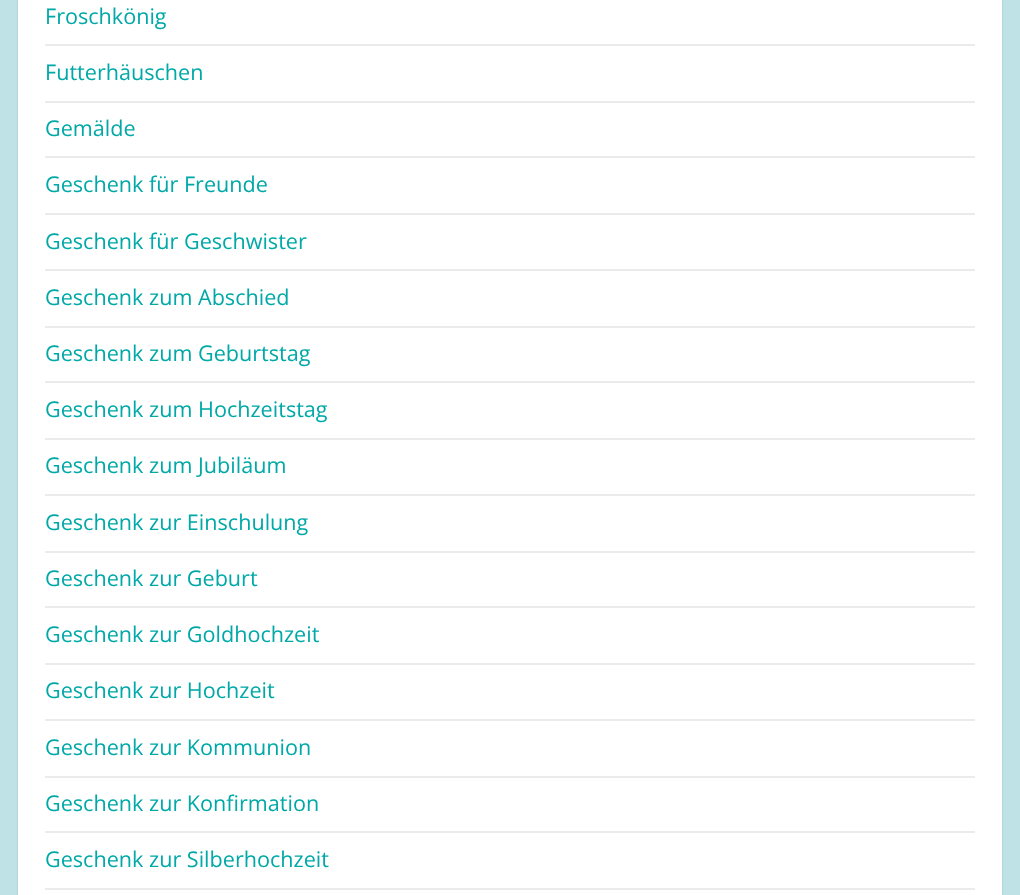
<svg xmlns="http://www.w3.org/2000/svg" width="1020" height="895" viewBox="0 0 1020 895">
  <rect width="100%" height="100%" fill="rgb(191,226,230)"/>
  <rect x="18" y="-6" width="984" height="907" rx="3" fill="rgba(0,0,0,0.12)" filter="blur(1px)"/>
  <rect x="18" y="0" width="984" height="895" fill="rgb(255,255,255)"/>
  <text x="45" y="24" font-family="Open Sans" font-size="21.6" fill="rgb(0,168,168)">Froschkönig</text>
  <rect x="45" y="44" width="930" height="2" fill="rgb(235,235,235)"/>
  <text x="45" y="80" font-family="Open Sans" font-size="21.6" fill="rgb(0,168,168)">Futterhäuschen</text>
  <rect x="45" y="101" width="930" height="2" fill="rgb(235,235,235)"/>
  <text x="45" y="136" font-family="Open Sans" font-size="21.6" fill="rgb(0,168,168)">Gemälde</text>
  <rect x="45" y="156" width="930" height="2" fill="rgb(235,235,235)"/>
  <text x="45" y="192" font-family="Open Sans" font-size="21.6" fill="rgb(0,168,168)">Geschenk für Freunde</text>
  <rect x="45" y="213" width="930" height="2" fill="rgb(235,235,235)"/>
  <text x="45" y="249" font-family="Open Sans" font-size="21.6" fill="rgb(0,168,168)">Geschenk für Geschwister</text>
  <rect x="45" y="269" width="930" height="2" fill="rgb(235,235,235)"/>
  <text x="45" y="305" font-family="Open Sans" font-size="21.6" fill="rgb(0,168,168)">Geschenk zum Abschied</text>
  <rect x="45" y="326" width="930" height="2" fill="rgb(235,235,235)"/>
  <text x="45" y="361" font-family="Open Sans" font-size="21.6" fill="rgb(0,168,168)">Geschenk zum Geburtstag</text>
  <rect x="45" y="381" width="930" height="2" fill="rgb(235,235,235)"/>
  <text x="45" y="417" font-family="Open Sans" font-size="21.6" fill="rgb(0,168,168)">Geschenk zum Hochzeitstag</text>
  <rect x="45" y="438" width="930" height="2" fill="rgb(235,235,235)"/>
  <text x="45" y="473" font-family="Open Sans" font-size="21.6" fill="rgb(0,168,168)">Geschenk zum Jubiläum</text>
  <rect x="45" y="494" width="930" height="2" fill="rgb(235,235,235)"/>
  <text x="45" y="530" font-family="Open Sans" font-size="21.6" fill="rgb(0,168,168)">Geschenk zur Einschulung</text>
  <rect x="45" y="551" width="930" height="2" fill="rgb(235,235,235)"/>
  <text x="45" y="586" font-family="Open Sans" font-size="21.6" fill="rgb(0,168,168)">Geschenk zur Geburt</text>
  <rect x="45" y="606" width="930" height="2" fill="rgb(235,235,235)"/>
  <text x="45" y="642" font-family="Open Sans" font-size="21.6" fill="rgb(0,168,168)">Geschenk zur Goldhochzeit</text>
  <rect x="45" y="663" width="930" height="2" fill="rgb(235,235,235)"/>
  <text x="45" y="698" font-family="Open Sans" font-size="21.6" fill="rgb(0,168,168)">Geschenk zur Hochzeit</text>
  <rect x="45" y="719" width="930" height="2" fill="rgb(235,235,235)"/>
  <text x="45" y="755" font-family="Open Sans" font-size="21.6" fill="rgb(0,168,168)">Geschenk zur Kommunion</text>
  <rect x="45" y="776" width="930" height="2" fill="rgb(235,235,235)"/>
  <text x="45" y="811" font-family="Open Sans" font-size="21.6" fill="rgb(0,168,168)">Geschenk zur Konfirmation</text>
  <rect x="45" y="831" width="930" height="2" fill="rgb(235,235,235)"/>
  <text x="45" y="867" font-family="Open Sans" font-size="21.6" fill="rgb(0,168,168)">Geschenk zur Silberhochzeit</text>
  <rect x="45" y="888" width="930" height="2" fill="rgb(235,235,235)"/>
</svg>
